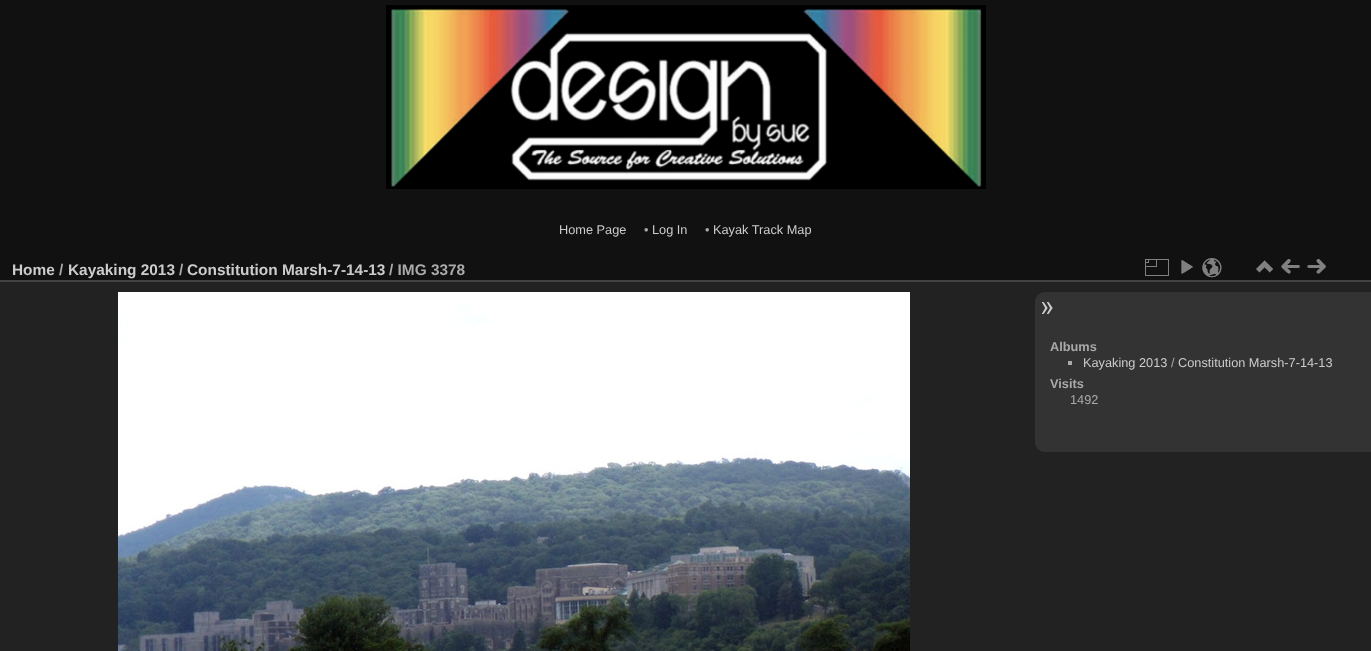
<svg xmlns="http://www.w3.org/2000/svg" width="1371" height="651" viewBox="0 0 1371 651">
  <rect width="100%" height="100%" fill="rgb(17,17,17)"/>
  <image x="386" y="5" width="600" height="184" href="pic1.png"/>
  <text x="559" y="234" font-family="Liberation Sans" font-size="12.75" fill="rgb(204,204,204)">Home Page</text>
  <text x="644" y="234" font-family="Liberation Sans" font-size="12.75" fill="rgb(170,170,170)">•</text>
  <text x="652" y="234" font-family="Liberation Sans" font-size="12.75" fill="rgb(204,204,204)">Log In</text>
  <text x="705" y="234" font-family="Liberation Sans" font-size="12.75" fill="rgb(170,170,170)">•</text>
  <text x="713" y="234" font-family="Liberation Sans" font-size="12.75" fill="rgb(204,204,204)">Kayak Track Map</text>
  <rect x="0" y="282" width="1371" height="369" fill="rgb(34,34,34)"/>
  <rect x="0" y="280" width="1371" height="2" fill="rgb(68,68,68)"/>
  <text x="12" y="275" font-family="Liberation Sans" font-size="15.4" font-weight="bold" fill="rgb(204,204,204)">Home</text>
  <text x="59" y="275" font-family="Liberation Sans" font-size="15.4" font-weight="bold" fill="rgb(170,170,170)">/</text>
  <text x="68" y="275" font-family="Liberation Sans" font-size="15.4" font-weight="bold" fill="rgb(204,204,204)">Kayaking 2013</text>
  <text x="179" y="275" font-family="Liberation Sans" font-size="15.4" font-weight="bold" fill="rgb(170,170,170)">/</text>
  <text x="187" y="275" font-family="Liberation Sans" font-size="15.4" font-weight="bold" fill="rgb(204,204,204)">Constitution Marsh-7-14-13</text>
  <text x="389" y="275" font-family="Liberation Sans" font-size="15.4" font-weight="bold" fill="rgb(170,170,170)">/ IMG 3378</text>
  <image x="1145" y="259" width="24" height="17" href="pic2.png"/>
  <image x="1181" y="260" width="12" height="14" href="pic3.png"/>
  <image x="1202" y="258" width="20" height="20" href="pic4.png"/>
  <image x="1256" y="260" width="17" height="13" href="pic5.png"/>
  <image x="1281" y="259" width="19" height="15" href="pic6.png"/>
  <image x="1307" y="259" width="19" height="15" href="pic7.png"/>
  <image x="118" y="292" width="792" height="359" href="pic8.png"/>
  <path d="M1045 292H1371V452H1045C1039.5 452 1035 447.5 1035 442V302C1035 296.5 1039.5 292 1045 292Z" fill="rgb(51,51,51)"/>
  <image x="1041" y="302" width="12" height="12" href="pic9.png"/>
  <text x="1050" y="351" font-family="Liberation Sans" font-size="12.75" font-weight="bold" fill="rgb(170,170,170)">Albums</text>
  <rect x="1068" y="361" width="4" height="4" fill="rgb(170,170,170)"/>
  <text x="1083" y="367" font-family="Liberation Sans" font-size="12.75" fill="rgb(204,204,204)">Kayaking 2013</text>
  <text x="1171" y="367" font-family="Liberation Sans" font-size="12.75" fill="rgb(170,170,170)">/</text>
  <text x="1178" y="367" font-family="Liberation Sans" font-size="12.75" fill="rgb(204,204,204)">Constitution Marsh-7-14-13</text>
  <text x="1050" y="388" font-family="Liberation Sans" font-size="12.75" font-weight="bold" fill="rgb(170,170,170)">Visits</text>
  <text x="1070" y="404" font-family="Liberation Sans" font-size="12.75" fill="rgb(170,170,170)">1492</text>
</svg>
